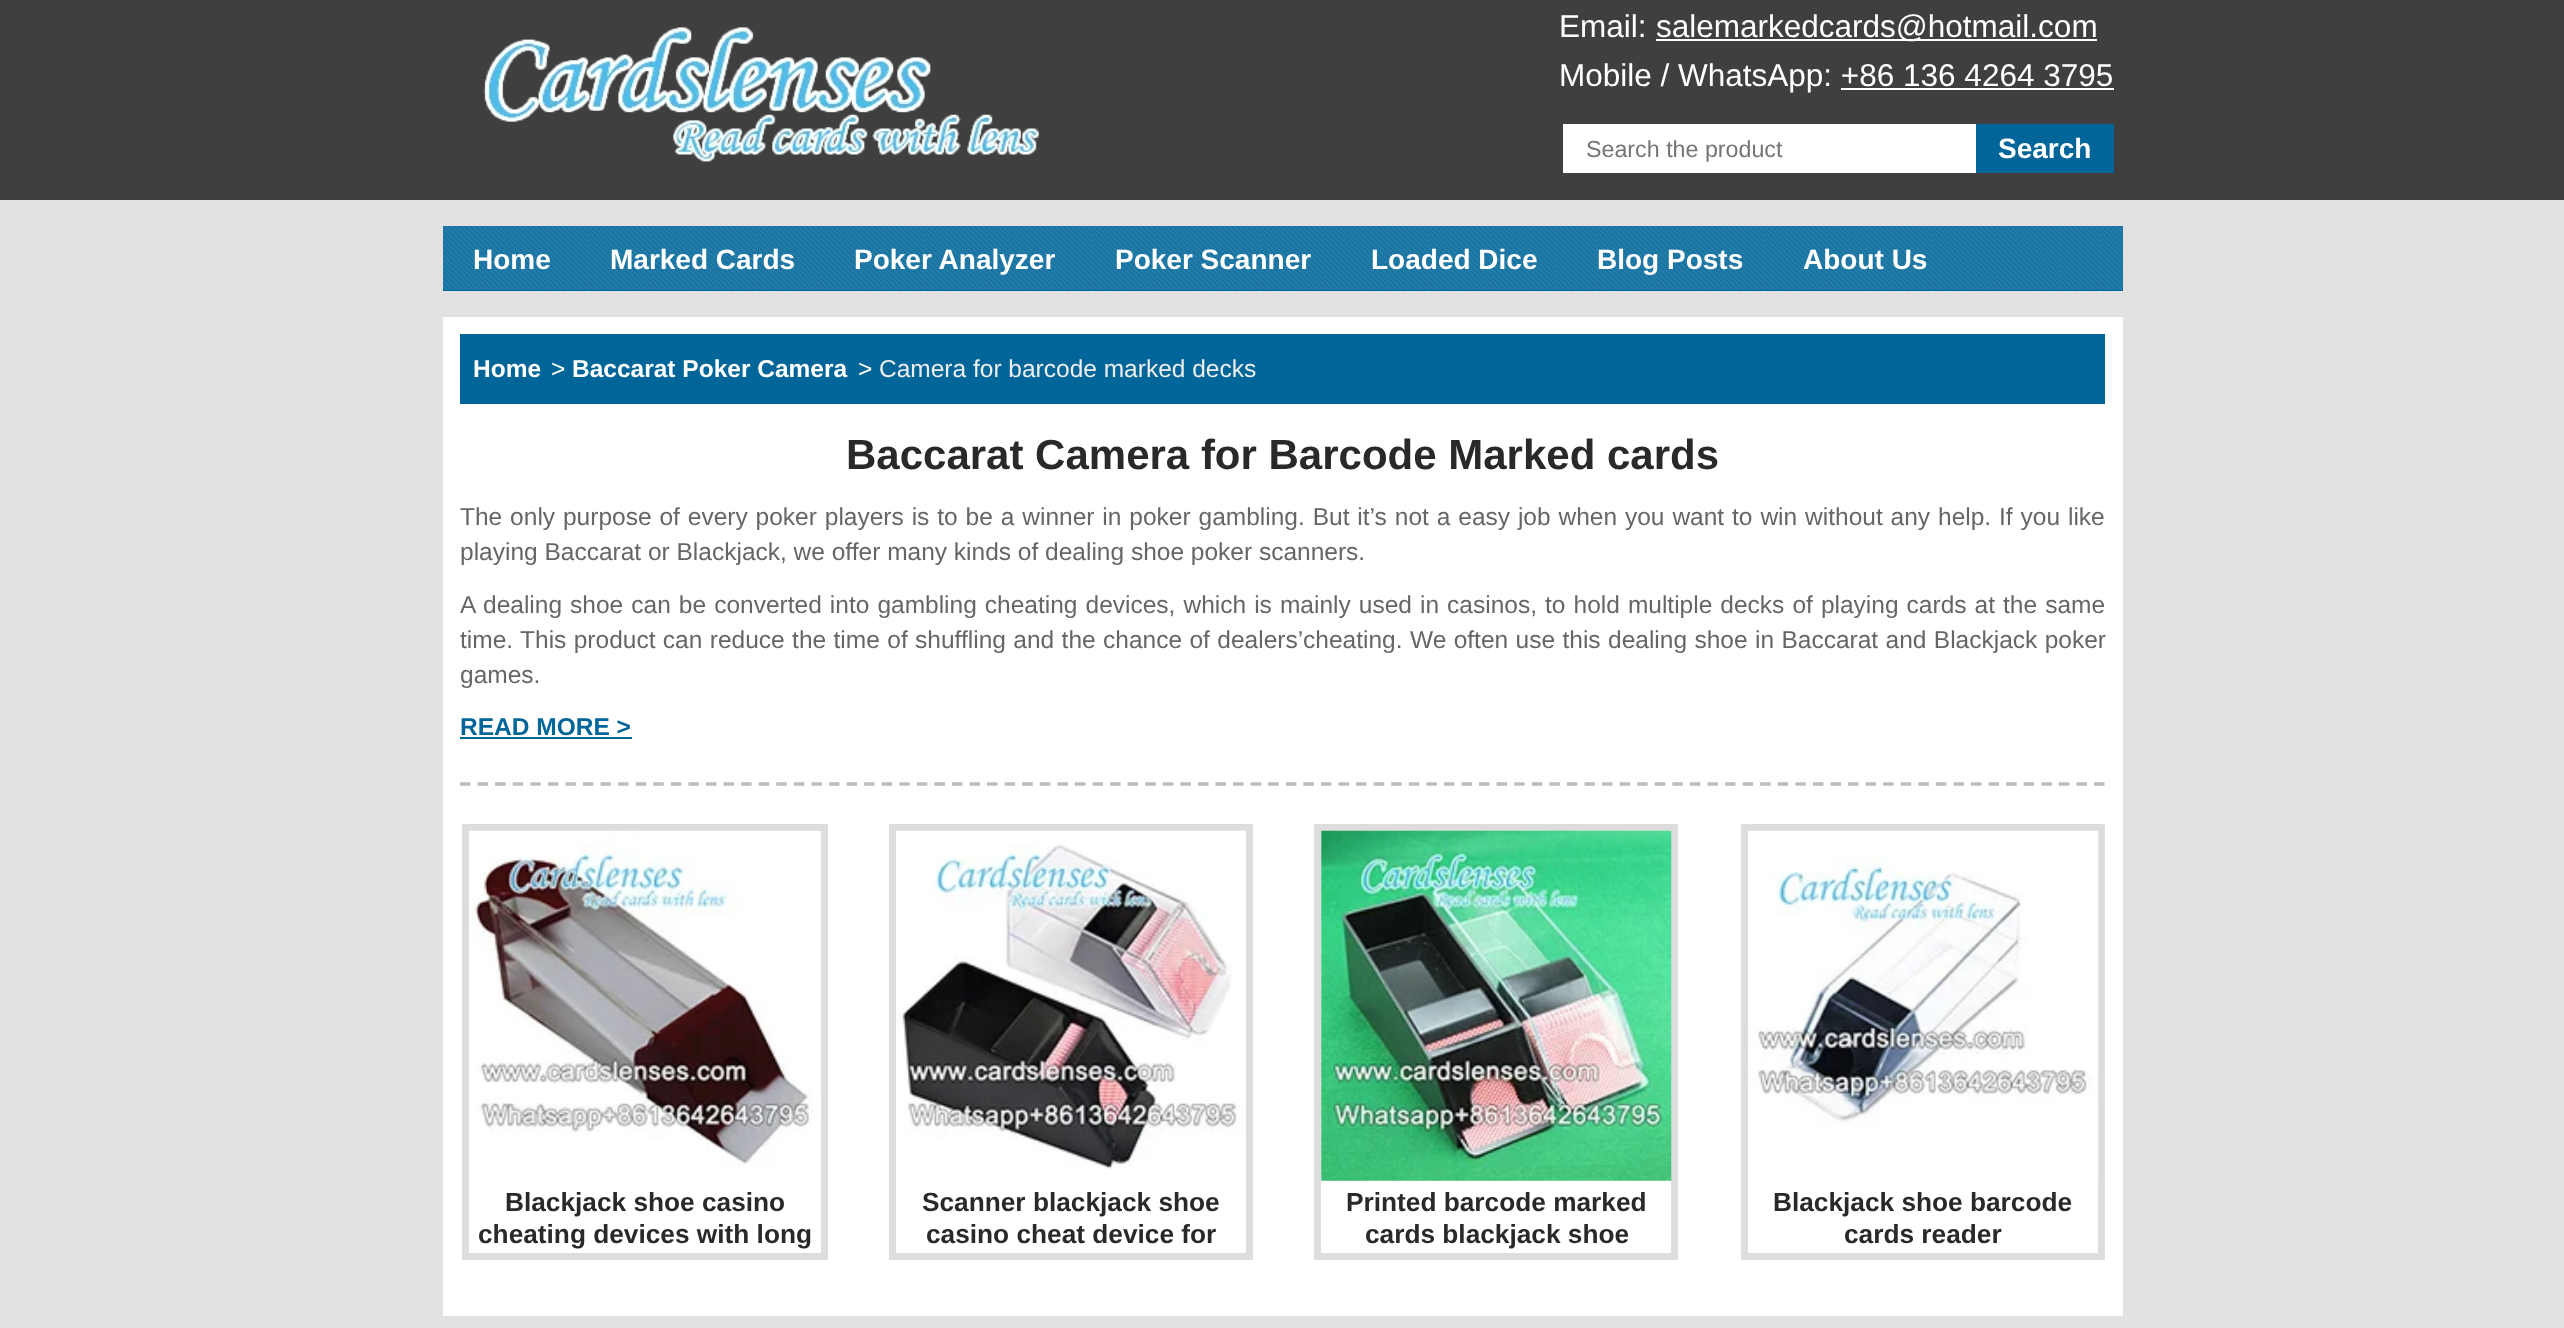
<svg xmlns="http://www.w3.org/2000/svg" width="2564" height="1328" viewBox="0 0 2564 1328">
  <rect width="100%" height="100%" fill="rgb(226,226,226)"/>
  <rect x="0" y="0" width="2564" height="200" fill="rgb(63,63,63)"/>
  <image x="483" y="27" width="556" height="135" href="pic1.png"/>
  <text x="1559" y="37" font-family="Liberation Sans" font-size="31.5" fill="rgb(255,255,255)">Email:</text>
  <rect x="1656" y="39" width="441" height="2" fill="rgb(255,255,255)"/>
  <g font-family="Liberation Sans" font-size="31.5" fill="rgb(255,255,255)">
    <text x="1656" y="37">salemarkedcards@hotmail.com</text>
    <text x="1559" y="86">Mobile / WhatsApp: +86 136 4264 3795</text>
  </g>
  <rect x="1841" y="88" width="273" height="2" fill="rgb(255,255,255)"/>
  <rect x="1563" y="124" width="413" height="49" fill="rgb(255,255,255)"/>
  <text x="1586" y="157" font-family="Liberation Sans" font-size="23.25" fill="rgb(117,117,117)">Search the product</text>
  <rect x="1976" y="124" width="138" height="49" fill="rgb(0,102,153)"/>
  <text x="1998" y="158" font-family="Liberation Sans" font-size="28" font-weight="bold" fill="rgb(255,255,255)">Search</text>
  <rect x="443" y="226" width="1680" height="65" fill="rgb(0,102,153)"/>
  <image x="443" y="226" width="1680" height="64" href="pic2.png"/>
  <g font-family="Liberation Sans" font-size="28" font-weight="bold" fill="rgb(255,255,255)">
    <text x="473" y="269">Home</text>
    <text x="610" y="269">Marked Cards</text>
    <text x="854" y="269">Poker Analyzer</text>
    <text x="1115" y="269">Poker Scanner</text>
    <text x="1371" y="269">Loaded Dice</text>
    <text x="1597" y="269">Blog Posts</text>
    <text x="1803" y="269">About Us</text>
  </g>
  <rect x="443" y="317" width="1680" height="999" fill="rgb(255,255,255)"/>
  <rect x="460" y="334" width="1645" height="70" fill="rgb(0,102,153)"/>
  <text x="473" y="377" font-family="Liberation Sans" font-size="24.5" font-weight="bold" fill="rgb(255,255,255)">Home</text>
  <text x="551" y="377" font-family="Liberation Sans" font-size="24.5" letter-spacing="-3" fill="rgb(255,255,255)">&gt;</text>
  <text x="572" y="377" font-family="Liberation Sans" font-size="24.5" font-weight="bold" fill="rgb(255,255,255)">Baccarat Poker Camera</text>
  <text x="858" y="377" font-family="Liberation Sans" font-size="24.5" letter-spacing="-3" fill="rgb(255,255,255)">&gt;</text>
  <text x="879" y="377" font-family="Liberation Sans" font-size="24.5" fill="rgb(238,238,238)">Camera for barcode marked decks</text>
  <text x="846" y="469" font-family="Liberation Sans" font-size="42" font-weight="bold" fill="rgb(41,41,41)">Baccarat Camera for Barcode Marked cards</text>
  <g font-family="Liberation Sans" font-size="24.5" fill="rgb(102,102,102)">
    <text>
      <tspan x="460" y="525" word-spacing="1.1">The only purpose of every poker players is to be a winner in poker gambling. But it’s not a easy job when you want to win without any help. If you like</tspan>
      <tspan x="460" y="560">playing Baccarat or Blackjack, we offer many kinds of dealing shoe poker scanners.</tspan>
    </text>
    <text>
      <tspan x="460" y="613" word-spacing="1.25">A dealing shoe can be converted into gambling cheating devices, which is mainly used in casinos, to hold multiple decks of playing cards at the same</tspan>
      <tspan x="460" y="648" word-spacing="0.6">time. This product can reduce the time of shuffling and the chance of dealers’cheating. We often use this dealing shoe in Baccarat and Blackjack poker</tspan>
      <tspan x="460" y="683">games.</tspan>
    </text>
  </g>
  <text x="460" y="735" font-family="Liberation Sans" font-size="24.5" font-weight="bold" fill="rgb(0,102,153)">READ MORE &gt;</text>
  <rect x="460" y="737" width="172" height="2" fill="rgb(0,102,153)"/>
  <path d="M460 784H2105" fill="none" stroke="rgb(189,189,189)" stroke-width="3.5" stroke-dasharray="10.5 7.07"/>
  <rect x="465.5" y="827.5" width="359" height="429" fill="none" stroke="rgb(221,221,221)" stroke-width="7"/>
  <image x="469" y="830" width="350" height="337" href="pic3.png"/>
  <g font-family="Liberation Sans" font-size="26.25" font-weight="bold" fill="rgb(41,41,41)">
    <text x="505" y="1211">Blackjack shoe casino</text>
    <text x="478" y="1243">cheating devices with long</text>
  </g>
  <rect x="892.5" y="827.5" width="357" height="429" fill="none" stroke="rgb(221,221,221)" stroke-width="7"/>
  <image x="896" y="830" width="350" height="339" href="pic4.png"/>
  <g font-family="Liberation Sans" font-size="26.25" font-weight="bold" fill="rgb(41,41,41)">
    <text x="922" y="1211">Scanner blackjack shoe</text>
    <text x="926" y="1243">casino cheat device for</text>
  </g>
  <rect x="1317.5" y="827.5" width="357" height="429" fill="none" stroke="rgb(221,221,221)" stroke-width="7"/>
  <image x="1321" y="830" width="351" height="351" href="pic5.png"/>
  <g font-family="Liberation Sans" font-size="26.25" font-weight="bold" fill="rgb(41,41,41)">
    <text x="1346" y="1211">Printed barcode marked</text>
    <text x="1365" y="1243">cards blackjack shoe</text>
  </g>
  <rect x="1744.5" y="827.5" width="357" height="429" fill="none" stroke="rgb(221,221,221)" stroke-width="7"/>
  <image x="1748" y="830" width="351" height="351" href="pic6.png"/>
  <g font-family="Liberation Sans" font-size="26.25" font-weight="bold" fill="rgb(41,41,41)">
    <text x="1773" y="1211">Blackjack shoe barcode</text>
    <text x="1844" y="1243">cards reader</text>
  </g>
</svg>
